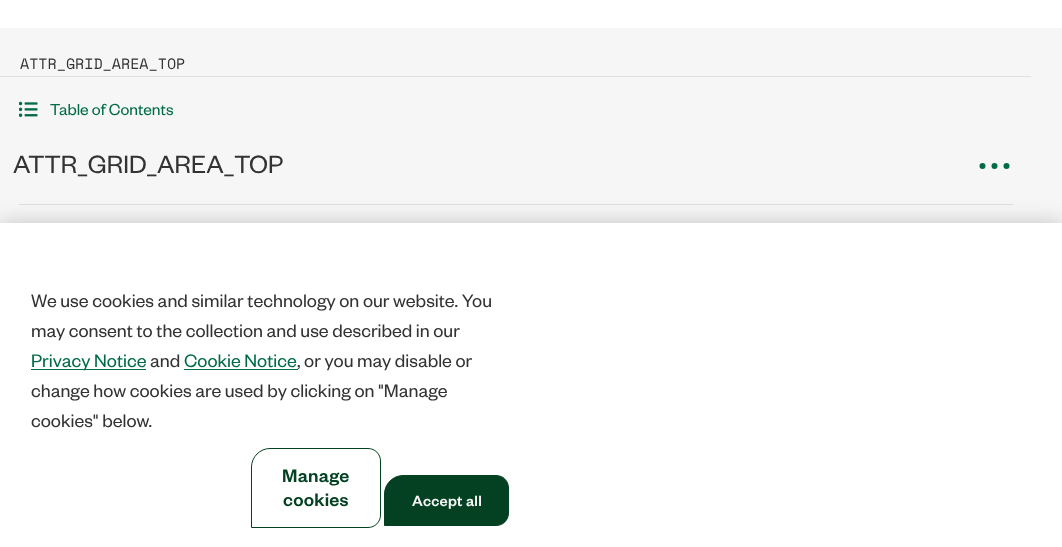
<svg xmlns="http://www.w3.org/2000/svg" width="1062" height="547" viewBox="0 0 1062 547">
  <rect width="100%" height="100%" fill="rgb(246,246,246)"/>
  <rect x="0" y="0" width="1062" height="28" fill="rgb(255,255,255)"/>
  <rect x="0" y="76" width="1031" height="1" fill="rgb(223,224,225)"/>
  <text x="20" y="69" font-family="Space Mono" font-size="15" fill="rgb(51,51,51)">ATTR_GRID_AREA_TOP</text>
  <image x="19" y="101" width="19" height="16" href="pic1.png"/>
  <text x="50" y="115" font-family="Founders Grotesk" font-size="17.5" fill="rgb(0,107,70)">Table of Contents</text>
  <text x="13" y="173" font-family="Founders Grotesk" font-size="27.5" fill="rgb(51,51,51)">ATTR_GRID_AREA_TOP</text>
  <circle cx="982.5" cy="166" r="3" fill="rgb(0,107,70)"/>
  <circle cx="994.5" cy="166" r="3" fill="rgb(0,107,70)"/>
  <circle cx="1006.5" cy="166" r="3" fill="rgb(0,107,70)"/>
  <rect x="19" y="204" width="994" height="1" fill="rgb(223,224,225)"/>
  <rect x="0" y="223" width="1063" height="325" fill="rgba(0,0,0,0.2)" filter="blur(11px)"/>
  <rect x="0" y="223" width="1062" height="324" fill="rgb(255,255,255)"/>
  <g font-family="Founders Grotesk" font-size="20" fill="rgb(51,51,51)">
    <text>
      <tspan x="31" y="307">We use cookies and similar technology on our website. You</tspan>
      <tspan x="31" y="337">may consent to the collection and use described in our</tspan>
    </text>
  </g>
  <rect x="31" y="369" width="115" height="1" fill="rgb(0,107,70)"/>
  <text x="31" y="367" font-family="Founders Grotesk" font-size="20" fill="rgb(0,107,70)">Privacy Notice</text>
  <text x="150" y="367" font-family="Founders Grotesk" font-size="20" fill="rgb(51,51,51)">and</text>
  <text x="184" y="367" font-family="Founders Grotesk" font-size="20" fill="rgb(0,107,70)">Cookie Notice</text>
  <rect x="184" y="369" width="114" height="1" fill="rgb(0,107,70)"/>
  <g font-family="Founders Grotesk" font-size="20" fill="rgb(51,51,51)">
    <text x="297" y="367">, or you may disable or</text>
    <text>
      <tspan x="31" y="397">change how cookies are used by clicking on "Manage</tspan>
      <tspan x="31" y="427">cookies" below.</tspan>
    </text>
  </g>
  <path d="M270 448.5H368C375 448.5 380.5 454 380.5 461V515C380.5 522 375 527.5 368 527.5H251.5V467C251.5 457 260 448.5 270 448.5Z" fill="none" stroke="rgb(4,65,35)"/>
  <g font-family="Founders Grotesk" font-size="20" font-weight="500" letter-spacing="0.25" fill="rgb(4,65,35)">
    <text x="282" y="482">Manage</text>
    <text x="283" y="506">cookies</text>
  </g>
  <path d="M403 475.5H496C503 475.5 508.5 481 508.5 488V513C508.5 520 503 525.5 496 525.5H384.5V494C384.5 484 393 475.5 403 475.5Z" fill="rgb(4,65,35)" stroke="rgb(4,65,35)"/>
  <text x="412" y="506" font-family="Founders Grotesk" font-size="16.25" font-weight="500" letter-spacing="0.25" fill="rgb(244,244,244)">Accept all</text>
</svg>
